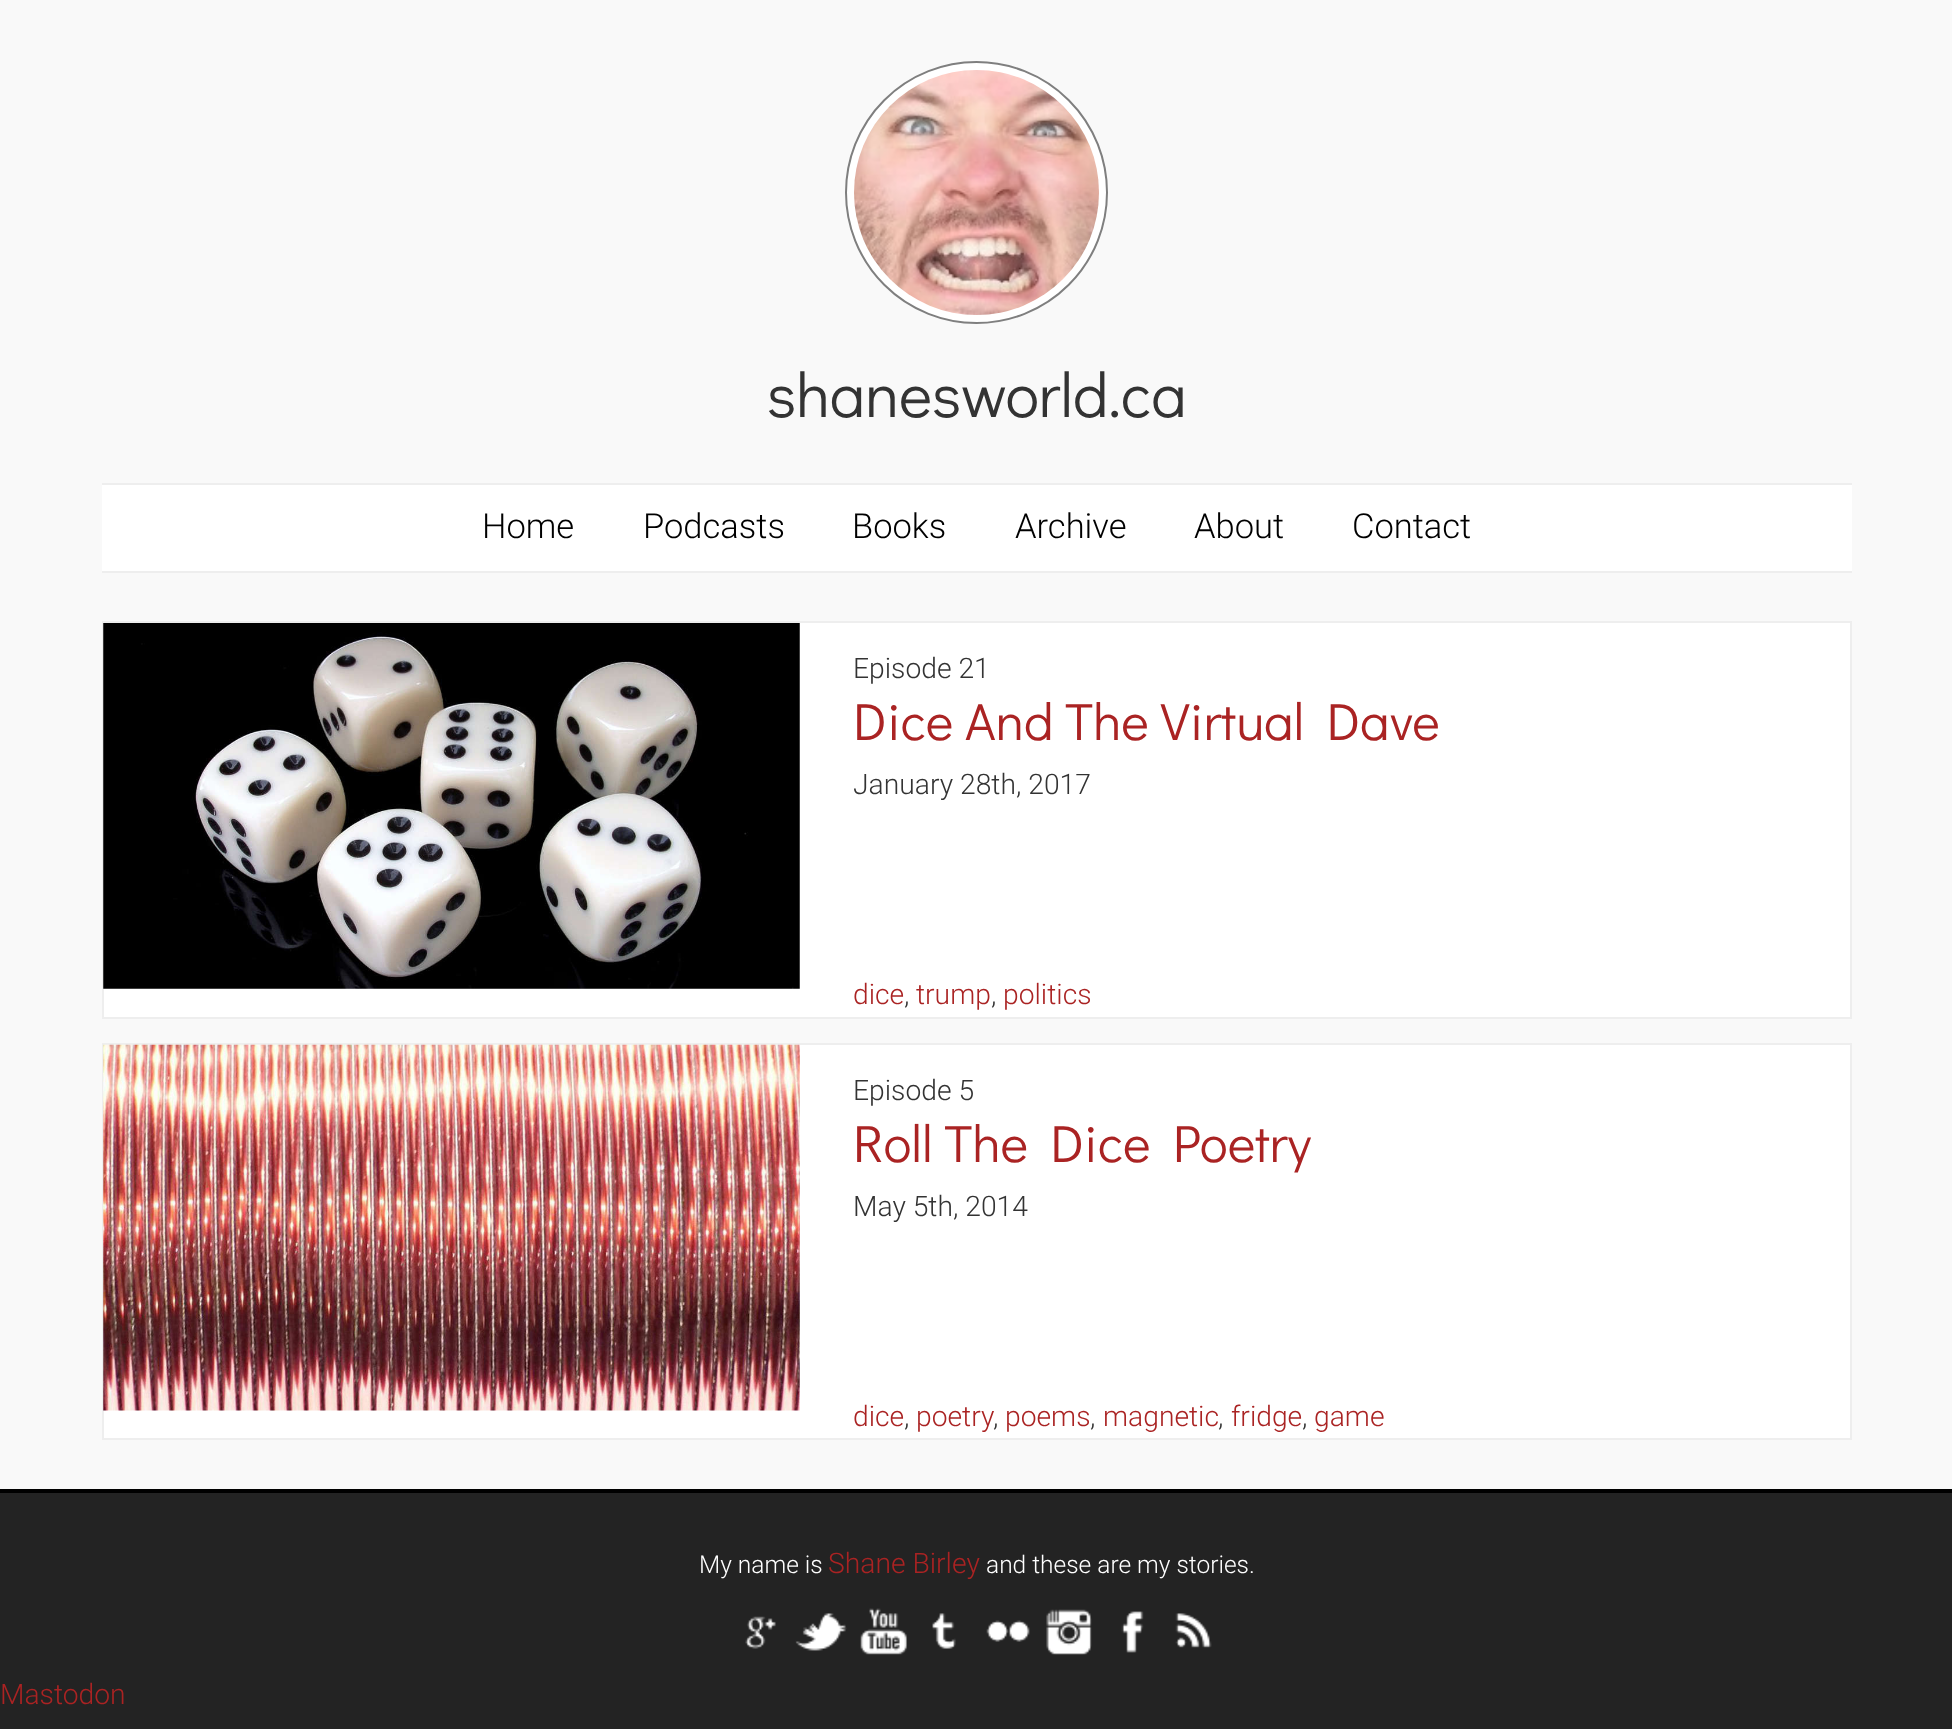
<svg xmlns="http://www.w3.org/2000/svg" width="1952" height="1729" viewBox="0 0 1952 1729">
  <rect width="100%" height="100%" fill="rgb(249,249,249)"/>
  <circle cx="976.5" cy="192.5" r="130.5" fill="rgb(255,255,255)" stroke="rgb(127,127,127)" stroke-width="2"/>
  <image x="854" y="70" width="245" height="245" href="pic1.png"/>
  <text x="767" y="417" font-family="Didact Gothic" font-size="63" fill="rgb(51,51,51)">shanesworld.ca</text>
  <rect x="102" y="485" width="1750" height="86" fill="rgb(255,255,255)"/>
  <rect x="102" y="483" width="1750" height="2" fill="rgb(238,238,238)"/>
  <rect x="102" y="571" width="1750" height="2" fill="rgb(238,238,238)"/>
  <g font-family="Roboto" font-size="34.5" font-weight="300" fill="rgb(0,0,0)">
    <text x="482" y="538">Home</text>
    <text x="643" y="538">Podcasts</text>
    <text x="852" y="538">Books</text>
    <text x="1015" y="538">Archive</text>
    <text x="1194" y="538">About</text>
    <text x="1352" y="538">Contact</text>
  </g>
  <rect x="103" y="622" width="1748" height="396" fill="rgb(255,255,255)" stroke="rgb(238,238,238)" stroke-width="2"/>
  <image x="103" y="623" width="697" height="366" href="pic2.png"/>
  <text x="853" y="678" font-family="Roboto" font-size="28.25" font-weight="300" fill="rgb(51,51,51)">Episode 21</text>
  <text x="853" y="740" font-family="Didact Gothic" font-size="52.5" fill="rgb(170,35,35)">Dice And The Virtual Dave</text>
  <text x="853" y="794" font-family="Roboto" font-size="28.25" font-weight="300" fill="rgb(51,51,51)">January 28th, 2017</text>
  <text x="853" y="1004" font-family="Roboto" font-size="28.25" font-weight="300" fill="rgb(170,35,35)">dice</text>
  <text x="904" y="1004" font-family="Roboto" font-size="28.25" font-weight="300" fill="rgb(51,51,51)">,</text>
  <text x="916" y="1004" font-family="Roboto" font-size="28.25" font-weight="300" fill="rgb(170,35,35)">trump</text>
  <text x="991" y="1004" font-family="Roboto" font-size="28.25" font-weight="300" fill="rgb(51,51,51)">,</text>
  <text x="1003" y="1004" font-family="Roboto" font-size="28.25" font-weight="300" fill="rgb(170,35,35)">politics</text>
  <rect x="103" y="1044" width="1748" height="395" fill="rgb(255,255,255)" stroke="rgb(238,238,238)" stroke-width="2"/>
  <image x="103" y="1044" width="697" height="367" href="pic3.png"/>
  <text x="853" y="1100" font-family="Roboto" font-size="28.25" font-weight="300" fill="rgb(51,51,51)">Episode 5</text>
  <text x="853" y="1162" font-family="Didact Gothic" font-size="52.5" fill="rgb(170,35,35)">Roll The Dice Poetry</text>
  <text x="853" y="1216" font-family="Roboto" font-size="28.25" font-weight="300" fill="rgb(51,51,51)">May 5th, 2014</text>
  <text x="853" y="1426" font-family="Roboto" font-size="28.25" font-weight="300" fill="rgb(170,35,35)">dice</text>
  <text x="904" y="1426" font-family="Roboto" font-size="28.25" font-weight="300" fill="rgb(51,51,51)">,</text>
  <text x="916" y="1426" font-family="Roboto" font-size="28.25" font-weight="300" fill="rgb(170,35,35)">poetry</text>
  <text x="993" y="1426" font-family="Roboto" font-size="28.25" font-weight="300" fill="rgb(51,51,51)">,</text>
  <text x="1005" y="1426" font-family="Roboto" font-size="28.25" font-weight="300" fill="rgb(170,35,35)">poems</text>
  <text x="1090" y="1426" font-family="Roboto" font-size="28.25" font-weight="300" fill="rgb(51,51,51)">,</text>
  <text x="1103" y="1426" font-family="Roboto" font-size="28.25" font-weight="300" fill="rgb(170,35,35)">magnetic</text>
  <text x="1218" y="1426" font-family="Roboto" font-size="28.25" font-weight="300" fill="rgb(51,51,51)">,</text>
  <text x="1231" y="1426" font-family="Roboto" font-size="28.25" font-weight="300" fill="rgb(170,35,35)">fridge</text>
  <text x="1302" y="1426" font-family="Roboto" font-size="28.25" font-weight="300" fill="rgb(51,51,51)">,</text>
  <text x="1314" y="1426" font-family="Roboto" font-size="28.25" font-weight="300" fill="rgb(170,35,35)">game</text>
  <rect x="0" y="1489" width="1952" height="4" fill="rgb(0,0,0)"/>
  <rect x="0" y="1493" width="1952" height="236" fill="rgb(35,35,35)"/>
  <text x="699" y="1573" font-family="Roboto" font-size="24.5" font-weight="300" fill="rgb(255,255,255)">My name is</text>
  <text x="828" y="1573" font-family="Roboto" font-size="28.25" font-weight="300" fill="rgb(170,35,35)">Shane Birley</text>
  <text x="986" y="1573" font-family="Roboto" font-size="24.5" font-weight="300" fill="rgb(255,255,255)">and these are my stories.</text>
  <image x="745" y="1616" width="31" height="33" href="pic4.png"/>
  <image x="795" y="1613" width="52" height="38" href="pic5.png"/>
  <image x="860" y="1608" width="47" height="47" href="pic6.png"/>
  <image x="932" y="1613" width="24" height="36" href="pic7.png"/>
  <image x="986" y="1620" width="44" height="22" href="pic8.png"/>
  <image x="1046" y="1609" width="46" height="46" href="pic9.png"/>
  <image x="1121" y="1611" width="23" height="42" href="pic10.png"/>
  <image x="1175" y="1613" width="37" height="35" href="pic11.png"/>
  <text x="0" y="1704" font-family="Roboto" font-size="28.25" font-weight="300" fill="rgb(170,35,35)">Mastodon</text>
</svg>
